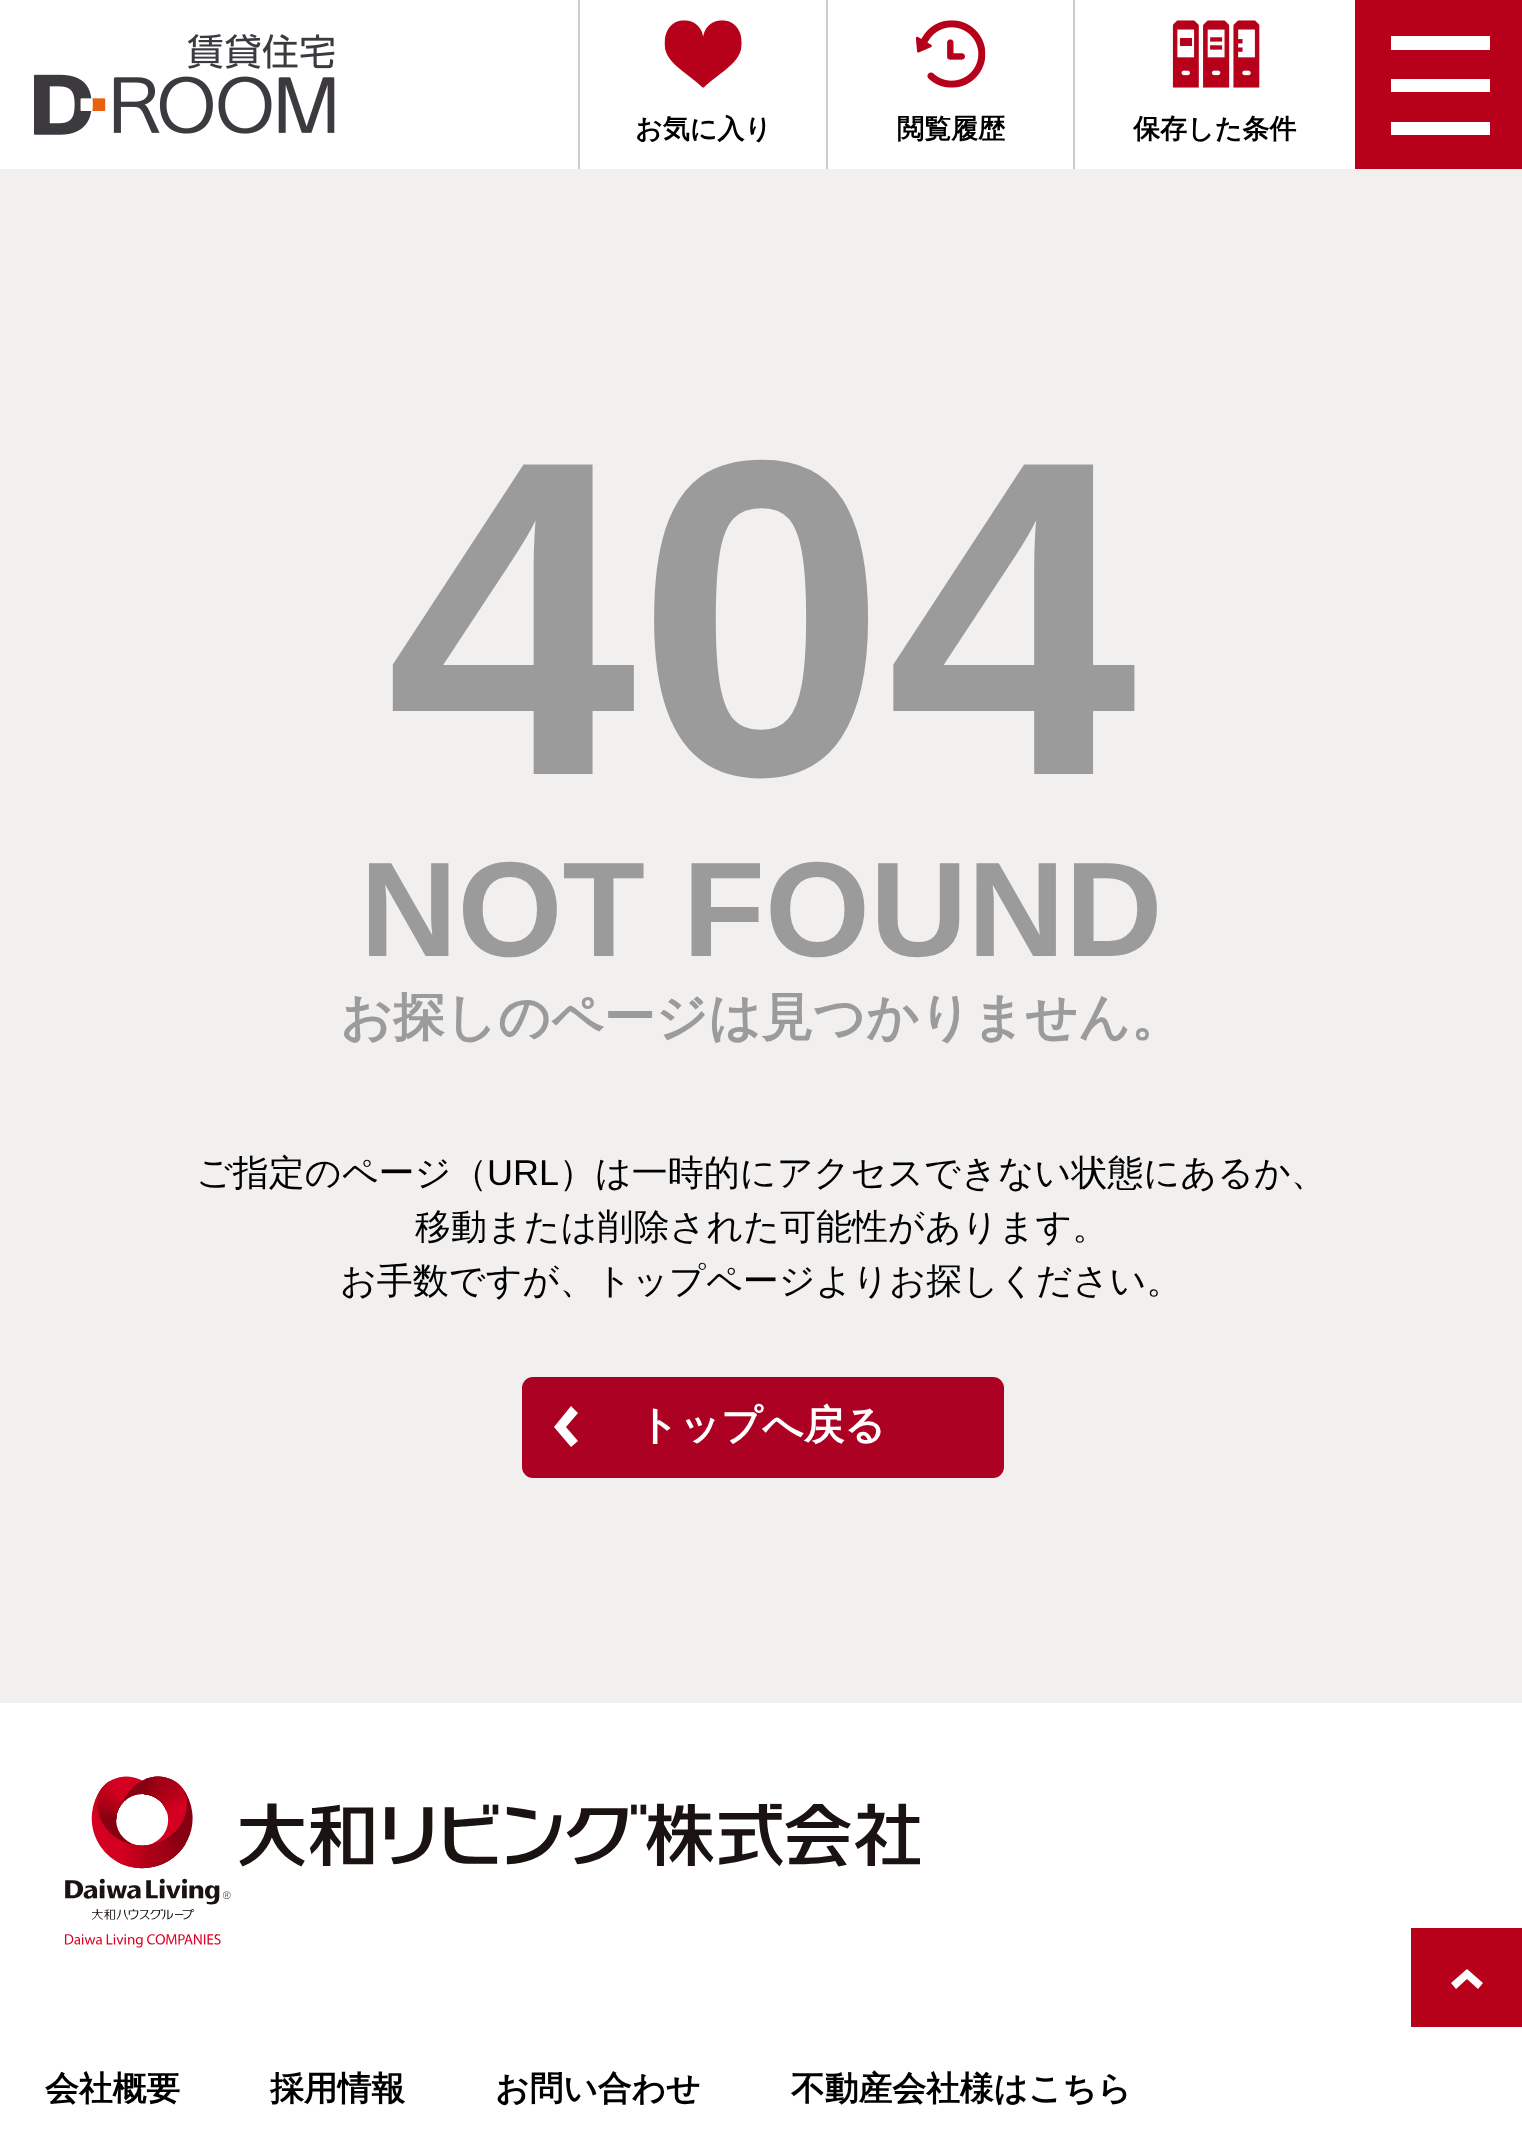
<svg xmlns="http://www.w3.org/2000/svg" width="1522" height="2138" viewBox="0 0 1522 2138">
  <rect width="100%" height="100%" fill="rgb(255,255,255)"/>
  <image x="34" y="34" width="301" height="101" href="pic1.png"/>
  <rect x="578" y="0" width="2" height="169" fill="rgb(204,204,204)"/>
  <image x="664" y="20" width="78" height="68" href="pic2.png"/>
  <text x="635" y="138" font-family="WenQuanYi Zen Hei" font-size="27" font-weight="bold" fill="rgb(0,0,0)">お気に入り</text>
  <rect x="826" y="0" width="2" height="169" fill="rgb(204,204,204)"/>
  <image x="916" y="20" width="70" height="68" href="pic3.png"/>
  <text x="897" y="138" font-family="WenQuanYi Zen Hei" font-size="27" font-weight="bold" fill="rgb(0,0,0)">閲覧履歴</text>
  <rect x="1073" y="0" width="2" height="169" fill="rgb(204,204,204)"/>
  <image x="1172" y="20" width="88" height="68" href="pic4.png"/>
  <text x="1133" y="138" font-family="WenQuanYi Zen Hei" font-size="27" font-weight="bold" fill="rgb(0,0,0)">保存した条件</text>
  <rect x="1355" y="0" width="167" height="169" fill="rgb(183,0,25)"/>
  <rect x="1391" y="36" width="99" height="14" fill="rgb(255,255,255)"/>
  <rect x="1391" y="79" width="99" height="13" fill="rgb(255,255,255)"/>
  <rect x="1391" y="122" width="99" height="13" fill="rgb(255,255,255)"/>
  <rect x="0" y="169" width="1522" height="1534" fill="rgb(242,240,239)"/>
  <text x="386" y="774" font-family="Liberation Sans" font-size="450" font-weight="bold" fill="rgb(155,155,155)">404</text>
  <text x="360" y="956" font-family="Liberation Sans" font-size="135" font-weight="bold" fill="rgb(155,155,155)">NOT FOUND</text>
  <text x="340" y="1035" font-family="WenQuanYi Zen Hei" font-size="51.75" font-weight="bold" fill="rgb(155,155,155)">お探しのページは見つかりません。</text>
  <text x="196" y="1185" font-family="WenQuanYi Zen Hei" font-size="36" font-weight="500" fill="rgb(0,0,0)">ご指定のページ（</text>
  <text x="487" y="1185" font-family="Liberation Sans" font-size="36" fill="rgb(0,0,0)">URL</text>
  <g font-family="WenQuanYi Zen Hei" font-size="36" font-weight="500" fill="rgb(0,0,0)">
    <text x="559" y="1185">）は一時的にアクセスできない状態にあるか、</text>
    <text x="415" y="1239">移動または削除された可能性があります。</text>
    <text x="340" y="1293">お手数ですが、トップページよりお探しください。</text>
  </g>
  <rect x="522" y="1377" width="482" height="101" rx="11" fill="rgb(172,1,35)"/>
  <path d="M571 1406L578 1413L566 1427L578 1441L571 1447L554 1427Z" fill="rgb(255,255,255)"/>
  <text x="638" y="1439" font-family="WenQuanYi Zen Hei" font-size="40.5" font-weight="bold" fill="rgb(255,255,255)">トップへ戻る</text>
  <rect x="1411" y="1928" width="111" height="99" fill="rgb(183,0,25)"/>
  <path d="M1451 1983L1456 1989L1467 1979L1478 1989L1483 1983L1467 1969Z" fill="rgb(255,255,255)"/>
  <image x="64" y="1776" width="856" height="172" href="pic5.png"/>
  <g font-family="WenQuanYi Zen Hei" font-size="33.75" font-weight="bold" fill="rgb(0,0,0)">
    <text x="45" y="2100">会社概要</text>
    <text x="270" y="2100">採用情報</text>
    <text x="495" y="2100">お問い合わせ</text>
    <text x="791" y="2100">不動産会社様はこちら</text>
  </g>
</svg>
